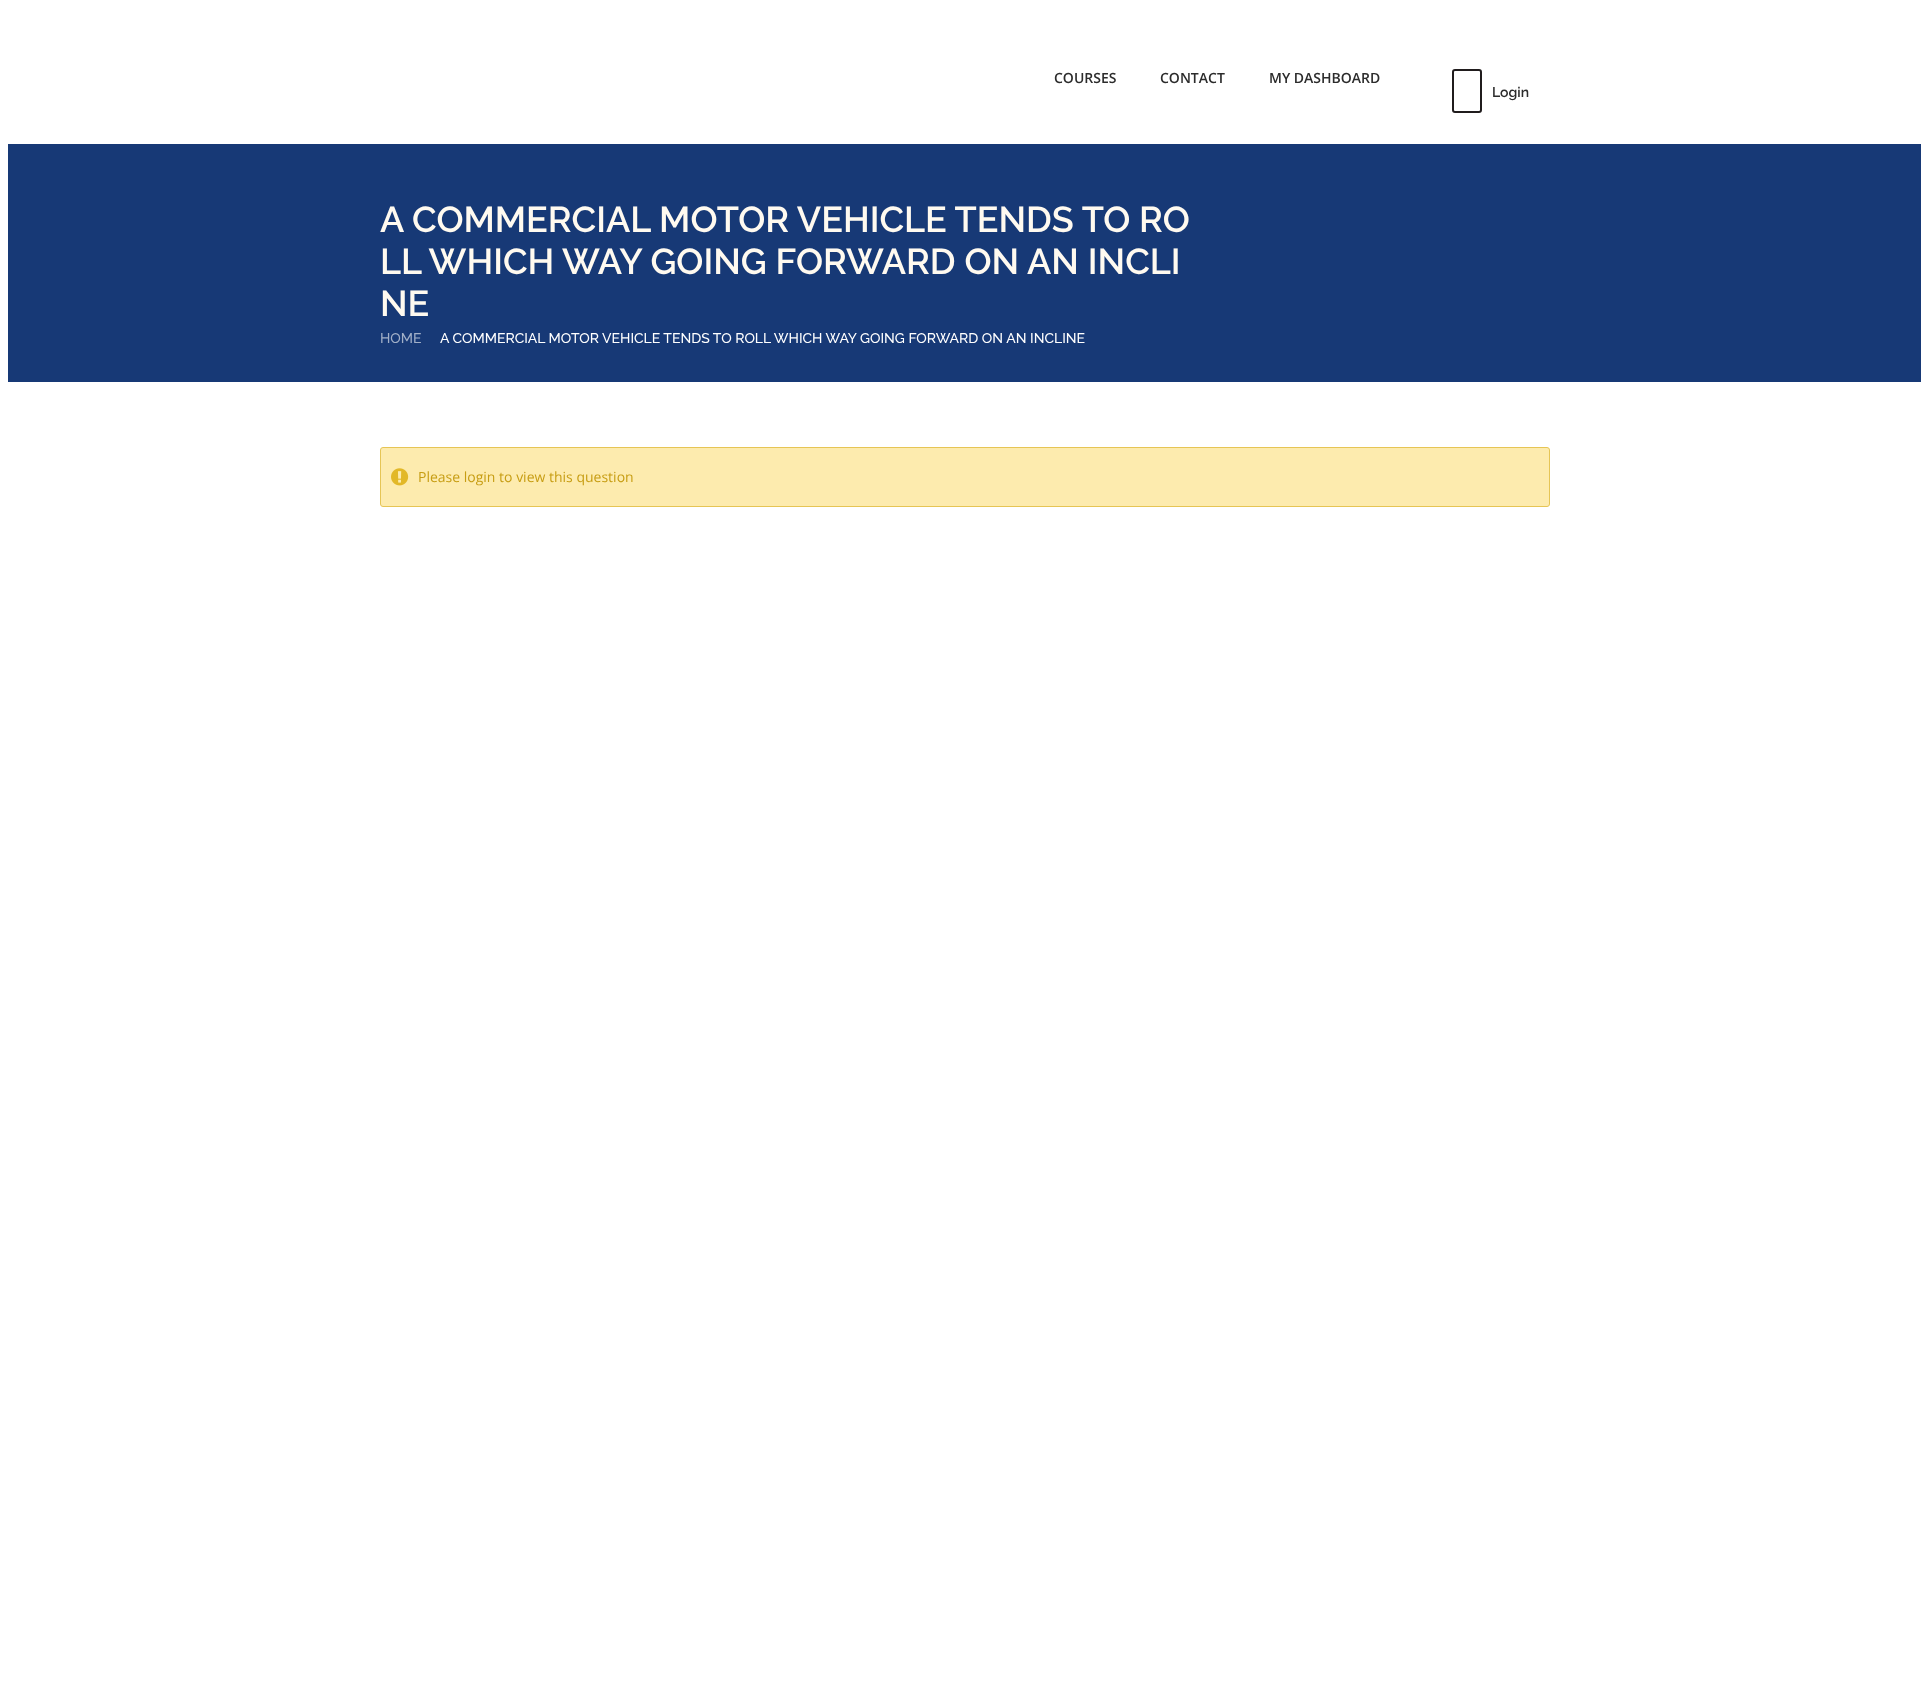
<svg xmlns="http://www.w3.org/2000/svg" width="1929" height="1684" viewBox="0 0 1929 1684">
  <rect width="100%" height="100%" fill="rgb(255,255,255)"/>
  <g font-family="Open Sans" font-size="14" font-weight="600" fill="rgb(44,44,44)">
    <text x="1054" y="83">COURSES</text>
    <text x="1160" y="83">CONTACT</text>
    <text x="1269" y="83">MY DASHBOARD</text>
  </g>
  <text x="1492" y="97" font-family="Raleway" font-size="14" font-weight="600" fill="rgb(44,44,44)">Login</text>
  <rect x="1453" y="70" width="28" height="42" rx="2" fill="none" stroke="rgb(32,28,29)" stroke-width="2"/>
  <rect x="8" y="144" width="1913" height="238" fill="rgb(23,57,118)"/>
  <g font-family="Raleway" font-size="36" font-weight="600" fill="rgb(255,250,240)">
    <text>
      <tspan x="380" y="232">A COMMERCIAL MOTOR VEHICLE TENDS TO RO</tspan>
      <tspan x="380" y="274">LL WHICH WAY GOING FORWARD ON AN INCLI</tspan>
      <tspan x="380" y="316">NE</tspan>
    </text>
  </g>
  <text x="380" y="343" font-family="Raleway" font-size="14" font-weight="500" fill="rgb(162,176,200)">HOME</text>
  <text x="440" y="343" font-family="Raleway" font-size="14" font-weight="500" fill="rgb(255,255,255)">A COMMERCIAL MOTOR VEHICLE TENDS TO ROLL WHICH WAY GOING FORWARD ON AN INCLINE</text>
  <rect x="380.5" y="447.5" width="1169" height="59" rx="2.5" fill="rgb(253,235,174)" stroke="rgb(230,197,85)"/>
  <image x="391" y="468" width="18" height="18" href="pic1.png"/>
  <text x="418" y="482" font-family="Open Sans" font-size="14" fill="rgb(199,157,19)">Please login to view this question</text>
</svg>
